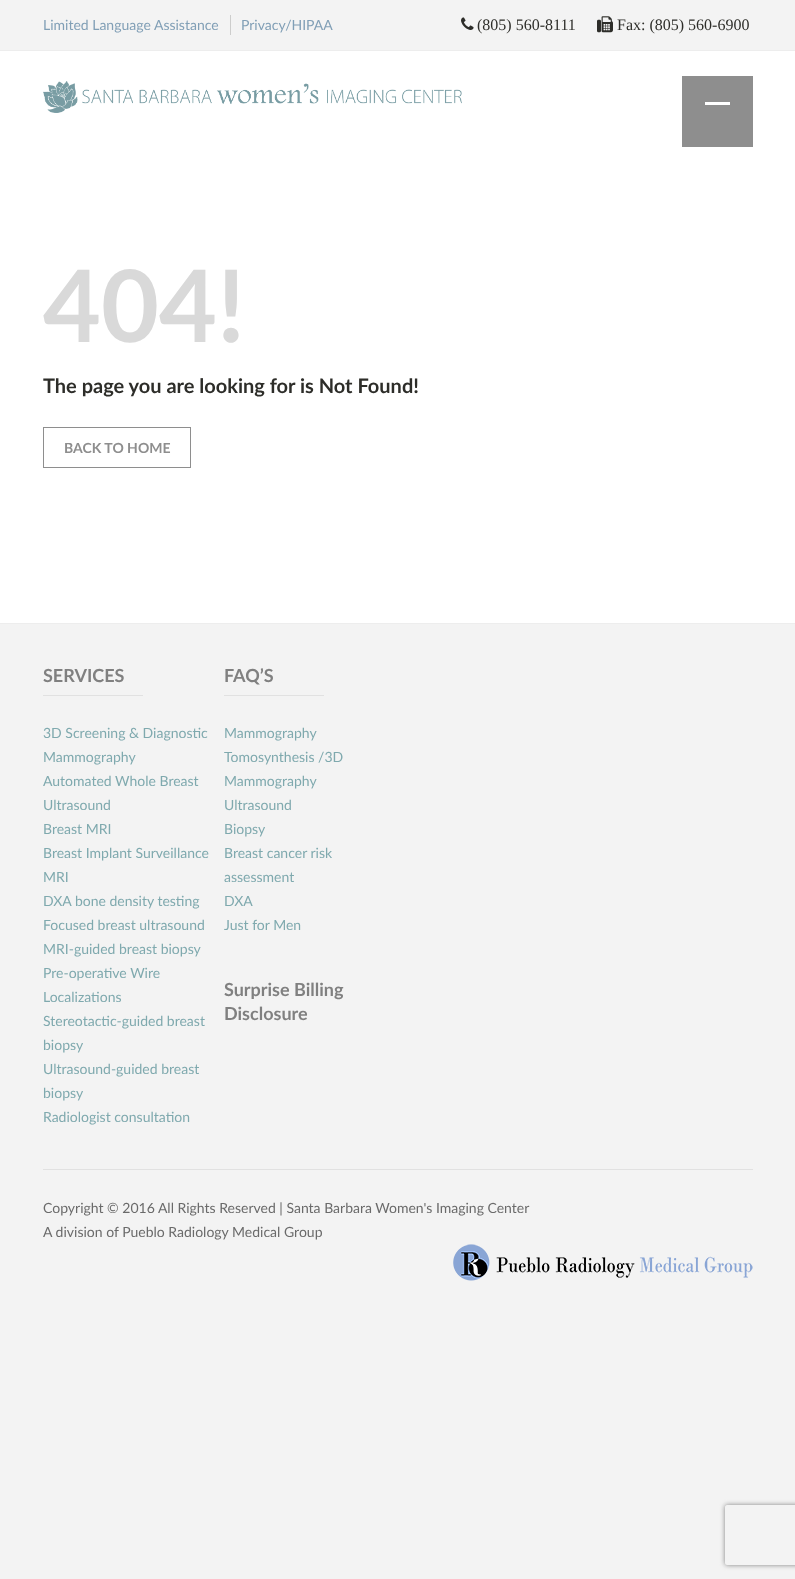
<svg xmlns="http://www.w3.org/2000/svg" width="795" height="1579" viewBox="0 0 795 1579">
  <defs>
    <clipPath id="clip1"><path d="M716 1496H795V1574H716ZM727 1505H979C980 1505 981 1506 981 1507V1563C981 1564 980 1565 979 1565H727C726 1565 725 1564 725 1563V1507C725 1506 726 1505 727 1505Z" clip-rule="evenodd"/></clipPath>
  </defs>
  <rect width="100%" height="100%" fill="rgb(243,243,243)"/>
  <text x="43" y="30" font-family="Lato" font-size="14" fill="rgb(129,159,182)">Limited Language Assistance</text>
  <rect x="230" y="15" width="1" height="20" fill="rgb(205,205,204)"/>
  <text x="241" y="30" font-family="Lato" font-size="14" fill="rgb(129,159,182)">Privacy/HIPAA</text>
  <image x="461" y="17" width="13" height="13" href="pic1.png"/>
  <text x="477" y="30" font-family="Liberation Serif" font-size="16" fill="rgb(45,45,41)">(805) 560-8111</text>
  <image x="597" y="16" width="16" height="17" href="pic2.png"/>
  <text x="617" y="30" font-family="Liberation Serif" font-size="16" fill="rgb(45,45,41)">Fax: (805) 560-6900</text>
  <rect x="0" y="50" width="795" height="1" fill="rgb(237,237,237)"/>
  <rect x="0" y="623" width="795" height="1" fill="rgb(237,237,237)"/>
  <rect x="0" y="51" width="795" height="572" fill="rgb(255,255,255)"/>
  <image x="43" y="81" width="419" height="32" href="pic3.png"/>
  <rect x="682" y="76" width="71" height="71" fill="rgb(142,142,142)"/>
  <rect x="705" y="102" width="25" height="3" fill="rgb(255,255,255)"/>
  <text x="43" y="342" font-family="Lato" font-size="100" font-weight="bold" fill="rgb(217,217,217)">404!</text>
  <text x="43" y="393" font-family="Lato" font-size="20" font-weight="bold" fill="rgb(45,45,41)">The page you are looking for is Not Found!</text>
  <rect x="43.5" y="427.5" width="147" height="40" fill="none" stroke="rgb(142,142,142)"/>
  <text x="64" y="453" font-family="Lato" font-size="14" font-weight="bold" fill="rgb(142,142,142)">BACK TO HOME</text>
  <text x="43" y="682" font-family="Lato" font-size="18" font-weight="bold" fill="rgb(128,128,128)">SERVICES</text>
  <rect x="43" y="695" width="100" height="1" fill="rgb(225,225,225)"/>
  <g font-family="Lato" font-size="14" fill="rgb(127,169,174)">
    <text>
      <tspan x="43" y="738">3D Screening &amp; Diagnostic</tspan>
      <tspan x="43" y="762">Mammography</tspan>
      <tspan x="43" y="786">Automated Whole Breast</tspan>
      <tspan x="43" y="810">Ultrasound</tspan>
      <tspan x="43" y="834">Breast MRI</tspan>
      <tspan x="43" y="858">Breast Implant Surveillance</tspan>
      <tspan x="43" y="882">MRI</tspan>
      <tspan x="43" y="906">DXA bone density testing</tspan>
      <tspan x="43" y="930">Focused breast ultrasound</tspan>
      <tspan x="43" y="954">MRI-guided breast biopsy</tspan>
      <tspan x="43" y="978">Pre-operative Wire</tspan>
      <tspan x="43" y="1002">Localizations</tspan>
      <tspan x="43" y="1026">Stereotactic-guided breast</tspan>
      <tspan x="43" y="1050">biopsy</tspan>
      <tspan x="43" y="1074">Ultrasound-guided breast</tspan>
      <tspan x="43" y="1098">biopsy</tspan>
      <tspan x="43" y="1122">Radiologist consultation</tspan>
    </text>
  </g>
  <text x="224" y="682" font-family="Lato" font-size="18" font-weight="bold" fill="rgb(128,128,128)">FAQ’S</text>
  <rect x="224" y="695" width="100" height="1" fill="rgb(225,225,225)"/>
  <g font-family="Lato" font-size="14" fill="rgb(127,169,174)">
    <text>
      <tspan x="224" y="738">Mammography</tspan>
      <tspan x="224" y="762">Tomosynthesis /3D</tspan>
      <tspan x="224" y="786">Mammography</tspan>
      <tspan x="224" y="810">Ultrasound</tspan>
      <tspan x="224" y="834">Biopsy</tspan>
      <tspan x="224" y="858">Breast cancer risk</tspan>
      <tspan x="224" y="882">assessment</tspan>
      <tspan x="224" y="906">DXA</tspan>
      <tspan x="224" y="930">Just for Men</tspan>
    </text>
  </g>
  <g font-family="Lato" font-size="18" font-weight="bold" fill="rgb(128,128,128)">
    <text>
      <tspan x="224" y="996">Surprise Billing</tspan>
      <tspan x="224" y="1020">Disclosure</tspan>
    </text>
  </g>
  <rect x="43" y="1169" width="710" height="1" fill="rgb(225,225,225)"/>
  <g font-family="Lato" font-size="14" fill="rgb(106,106,106)">
    <text>
      <tspan x="43" y="1213">Copyright © 2016 All Rights Reserved | Santa Barbara Women's Imaging Center</tspan>
      <tspan x="43" y="1237">A division of Pueblo Radiology Medical Group</tspan>
    </text>
  </g>
  <image x="453" y="1244" width="300" height="37" href="pic4.png"/>
  <g clip-path="url(#clip1)">
    <rect x="725" y="1505" width="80" height="60" rx="2" fill="rgb(128,128,128)" filter="blur(2.5px)"/>
  </g>
</svg>
